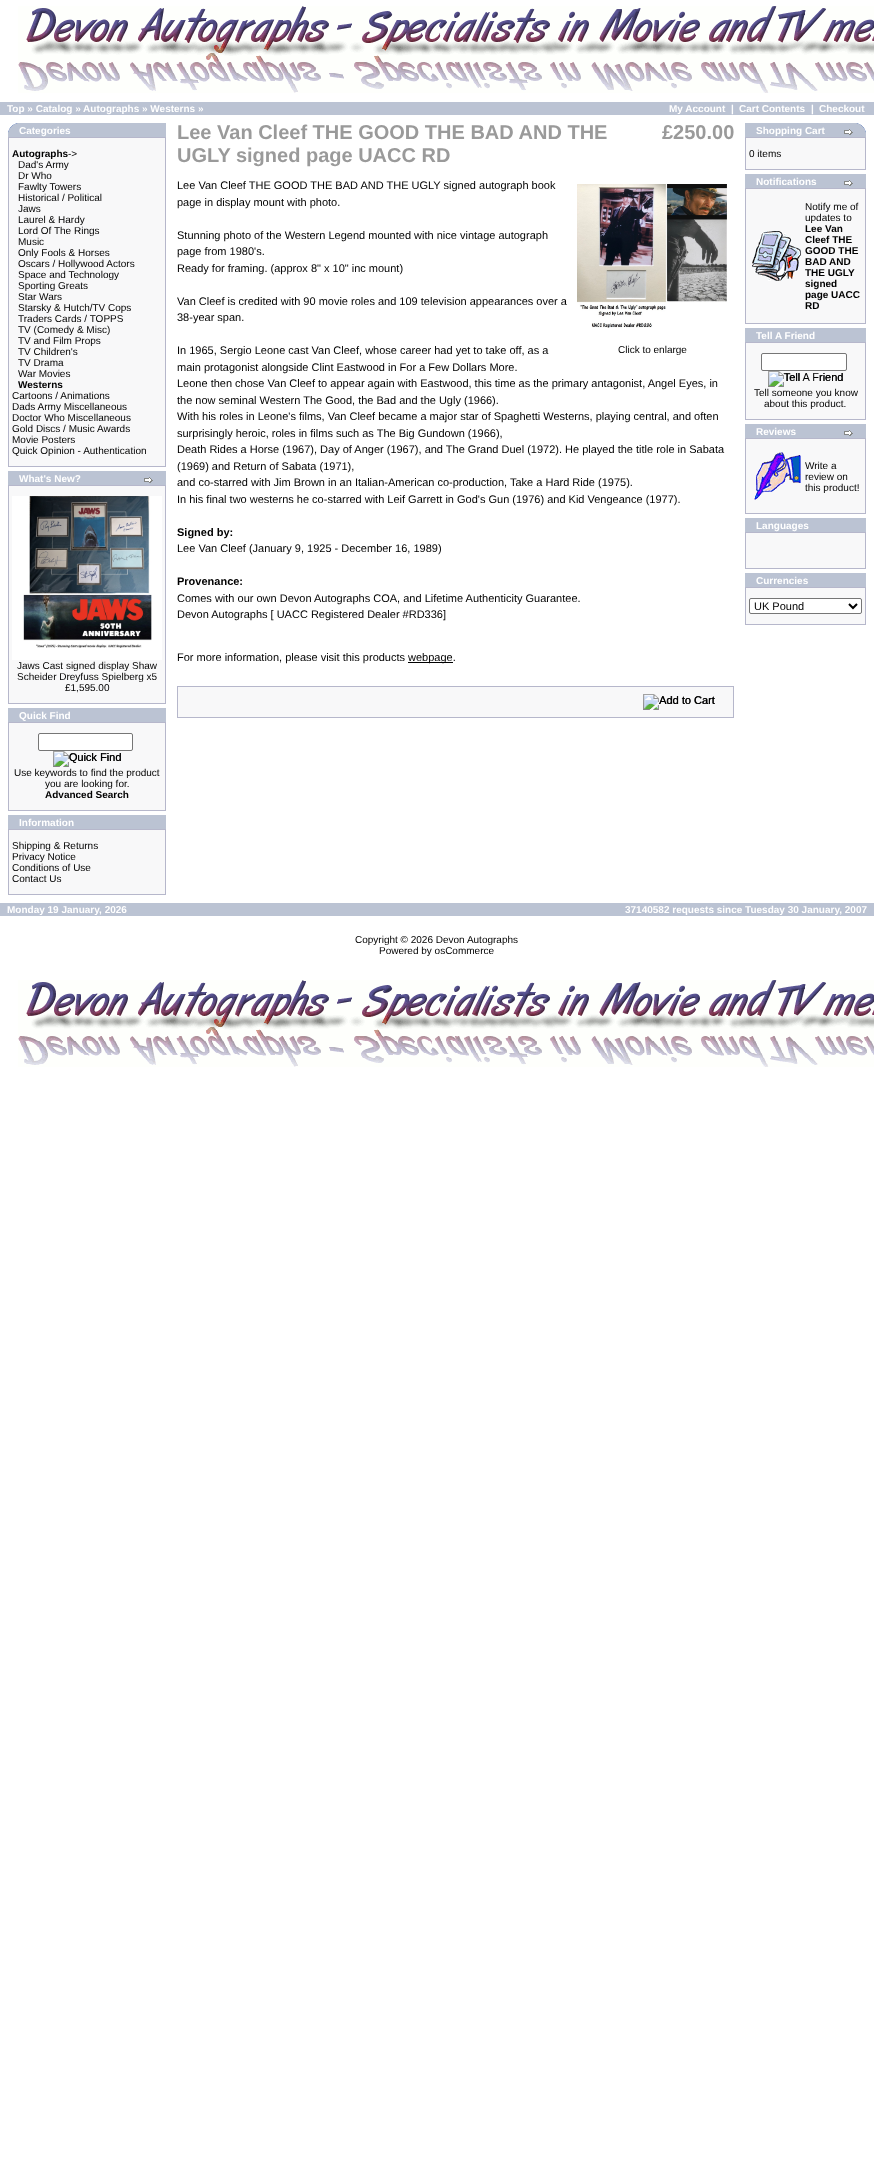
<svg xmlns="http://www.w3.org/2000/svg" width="874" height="2182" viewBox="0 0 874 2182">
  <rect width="100%" height="100%" fill="rgb(255,255,255)"/>
  <image x="18" y="6" width="856" height="87" href="pic1.png"/>
  <rect x="0" y="102" width="874" height="13" fill="rgb(187,195,211)"/>
  <g font-family="Liberation Sans" font-size="10" font-weight="bold" fill="rgb(255,255,255)">
    <text x="7" y="112">Top » Catalog » Autographs » Westerns »</text>
    <text x="669" y="112">My Account</text>
    <text x="731" y="112">|</text>
    <text x="739" y="112">Cart Contents</text>
    <text x="811" y="112">|</text>
    <text x="819" y="112">Checkout</text>
  </g>
  <rect x="8" y="123" width="158" height="14" fill="rgb(187,195,211)"/>
  <image x="8" y="123" width="10" height="10" href="pic2.png"/>
  <text x="19" y="134" font-family="Liberation Sans" font-size="10" font-weight="bold" fill="rgb(255,255,255)">Categories</text>
  <rect x="8" y="137" width="158" height="330" fill="rgb(182,183,203)"/>
  <rect x="9" y="138" width="156" height="328" fill="rgb(248,248,249)"/>
  <text x="12" y="157" font-family="Liberation Sans" font-size="10" font-weight="bold" fill="rgb(0,0,0)">Autographs</text>
  <g font-family="Liberation Sans" font-size="10" fill="rgb(0,0,0)">
    <text x="68" y="157">-&gt;</text>
    <text>
      <tspan x="18" y="168">Dad's Army</tspan>
      <tspan x="18" y="179">Dr Who</tspan>
      <tspan x="18" y="190">Fawlty Towers</tspan>
      <tspan x="18" y="201">Historical / Political</tspan>
      <tspan x="18" y="212">Jaws</tspan>
      <tspan x="18" y="223">Laurel &amp; Hardy</tspan>
      <tspan x="18" y="234">Lord Of The Rings</tspan>
      <tspan x="18" y="245">Music</tspan>
      <tspan x="18" y="256">Only Fools &amp; Horses</tspan>
      <tspan x="18" y="267">Oscars / Hollywood Actors</tspan>
      <tspan x="18" y="278">Space and Technology</tspan>
      <tspan x="18" y="289">Sporting Greats</tspan>
      <tspan x="18" y="300">Star Wars</tspan>
      <tspan x="18" y="311">Starsky &amp; Hutch/TV Cops</tspan>
      <tspan x="18" y="322">Traders Cards / TOPPS</tspan>
      <tspan x="18" y="333">TV (Comedy &amp; Misc)</tspan>
      <tspan x="18" y="344">TV and Film Props</tspan>
      <tspan x="18" y="355">TV Children's</tspan>
      <tspan x="18" y="366">TV Drama</tspan>
      <tspan x="18" y="377">War Movies</tspan>
    </text>
  </g>
  <text x="18" y="388" font-family="Liberation Sans" font-size="10" font-weight="bold" fill="rgb(0,0,0)">Westerns</text>
  <g font-family="Liberation Sans" font-size="10" fill="rgb(0,0,0)">
    <text>
      <tspan x="12" y="399">Cartoons / Animations</tspan>
      <tspan x="12" y="410">Dads Army Miscellaneous</tspan>
      <tspan x="12" y="421">Doctor Who Miscellaneous</tspan>
      <tspan x="12" y="432">Gold Discs / Music Awards</tspan>
      <tspan x="12" y="443">Movie Posters</tspan>
      <tspan x="12" y="454">Quick Opinion - Authentication</tspan>
    </text>
  </g>
  <rect x="8" y="471" width="158" height="14" fill="rgb(187,195,211)"/>
  <text x="19" y="482" font-family="Liberation Sans" font-size="10" font-weight="bold" fill="rgb(255,255,255)">What's New?</text>
  <image x="144" y="477" width="9" height="6" href="pic3.png"/>
  <rect x="8" y="485" width="158" height="219" fill="rgb(182,183,203)"/>
  <rect x="9" y="486" width="156" height="217" fill="rgb(248,248,249)"/>
  <image x="12" y="496" width="150" height="164" href="pic4.png"/>
  <g font-family="Liberation Sans" font-size="10" fill="rgb(0,0,0)">
    <text>
      <tspan x="17" y="669">Jaws Cast signed display Shaw</tspan>
      <tspan x="17" y="680">Scheider Dreyfuss Spielberg x5</tspan>
    </text>
    <text x="65" y="691">£1,595.00</text>
  </g>
  <rect x="8" y="708" width="158" height="14" fill="rgb(187,195,211)"/>
  <text x="19" y="719" font-family="Liberation Sans" font-size="10" font-weight="bold" fill="rgb(255,255,255)">Quick Find</text>
  <rect x="8" y="722" width="158" height="89" fill="rgb(182,183,203)"/>
  <rect x="9" y="723" width="156" height="87" fill="rgb(248,248,249)"/>
  <rect x="38.5" y="733.5" width="94" height="17" rx="1.5" fill="rgb(255,255,255)" stroke="rgb(118,118,118)"/>
  <image x="53" y="751" width="68" height="16" href="pic5.png"/>
  <text x="69" y="761" font-family="Liberation Sans" font-size="11" fill="rgb(0,0,0)">Quick Find</text>
  <g font-family="Liberation Sans" font-size="10" fill="rgb(0,0,0)">
    <text x="14" y="776">Use keywords to find the product</text>
    <text x="45" y="787">you are looking for.</text>
  </g>
  <text x="45" y="798" font-family="Liberation Sans" font-size="10" font-weight="bold" fill="rgb(0,0,0)">Advanced Search</text>
  <rect x="8" y="815" width="158" height="14" fill="rgb(187,195,211)"/>
  <text x="19" y="826" font-family="Liberation Sans" font-size="10" font-weight="bold" fill="rgb(255,255,255)">Information</text>
  <rect x="8" y="829" width="158" height="66" fill="rgb(182,183,203)"/>
  <rect x="9" y="830" width="156" height="64" fill="rgb(248,248,249)"/>
  <g font-family="Liberation Sans" font-size="10" fill="rgb(0,0,0)">
    <text>
      <tspan x="12" y="849">Shipping &amp; Returns</tspan>
      <tspan x="12" y="860">Privacy Notice</tspan>
      <tspan x="12" y="871">Conditions of Use</tspan>
      <tspan x="12" y="882">Contact Us</tspan>
    </text>
  </g>
  <g font-family="Liberation Sans" font-size="20" font-weight="bold" fill="rgb(154,154,154)">
    <text>
      <tspan x="177" y="139">Lee Van Cleef THE GOOD THE BAD AND THE</tspan>
      <tspan x="177" y="162">UGLY signed page UACC RD</tspan>
    </text>
    <text x="662" y="139">£250.00</text>
  </g>
  <g font-family="Liberation Sans" font-size="11" fill="rgb(0,0,0)">
    <text>
      <tspan x="177" y="189">Lee Van Cleef THE GOOD THE BAD AND THE UGLY signed autograph book</tspan>
      <tspan x="177" y="206">page in display mount with photo.</tspan>
    </text>
    <text>
      <tspan x="177" y="239">Stunning photo of the Western Legend mounted with nice vintage autograph</tspan>
      <tspan x="177" y="255">page from 1980's.</tspan>
      <tspan x="177" y="272">Ready for framing. (approx 8" x 10" inc mount)</tspan>
    </text>
    <text>
      <tspan x="177" y="305">Van Cleef is credited with 90 movie roles and 109 television appearances over a</tspan>
      <tspan x="177" y="321">38-year span.</tspan>
    </text>
    <text>
      <tspan x="177" y="354">In 1965, Sergio Leone cast Van Cleef, whose career had yet to take off, as a</tspan>
      <tspan x="177" y="371">main protagonist alongside Clint Eastwood in For a Few Dollars More.</tspan>
      <tspan x="177" y="387">Leone then chose Van Cleef to appear again with Eastwood, this time as the primary antagonist, Angel Eyes, in</tspan>
      <tspan x="177" y="404">the now seminal Western The Good, the Bad and the Ugly (1966).</tspan>
      <tspan x="177" y="420">With his roles in Leone's films, Van Cleef became a major star of Spaghetti Westerns, playing central, and often</tspan>
      <tspan x="177" y="437">surprisingly heroic, roles in films such as The Big Gundown (1966),</tspan>
      <tspan x="177" y="453">Death Rides a Horse (1967), Day of Anger (1967), and The Grand Duel (1972). He played the title role in Sabata</tspan>
      <tspan x="177" y="470">(1969) and Return of Sabata (1971),</tspan>
      <tspan x="177" y="486">and co-starred with Jim Brown in an Italian-American co-production, Take a Hard Ride (1975).</tspan>
      <tspan x="177" y="503">In his final two westerns he co-starred with Leif Garrett in God's Gun (1976) and Kid Vengeance (1977).</tspan>
    </text>
  </g>
  <text x="177" y="536" font-family="Liberation Sans" font-size="11" font-weight="bold" fill="rgb(0,0,0)">Signed by:</text>
  <text x="177" y="552" font-family="Liberation Sans" font-size="11" fill="rgb(0,0,0)">Lee Van Cleef (January 9, 1925 - December 16, 1989)</text>
  <text x="177" y="585" font-family="Liberation Sans" font-size="11" font-weight="bold" fill="rgb(0,0,0)">Provenance:</text>
  <g font-family="Liberation Sans" font-size="11" fill="rgb(0,0,0)">
    <text>
      <tspan x="177" y="602">Comes with our own Devon Autographs COA, and Lifetime Authenticity Guarantee.</tspan>
      <tspan x="177" y="618">Devon Autographs [ UACC Registered Dealer #RD336]</tspan>
    </text>
  </g>
  <image x="577" y="184" width="150" height="144" href="pic6.png"/>
  <text x="618" y="353" font-family="Liberation Sans" font-size="10" fill="rgb(0,0,0)">Click to enlarge</text>
  <text x="177" y="661" font-family="Liberation Sans" font-size="11" fill="rgb(0,0,0)">For more information, please visit this products</text>
  <rect x="408" y="662" width="45" height="1" fill="rgb(0,0,0)"/>
  <text x="408" y="661" font-family="Liberation Sans" font-size="11" fill="rgb(0,0,0)">webpage.</text>
  <rect x="177" y="686" width="557" height="32" fill="rgb(182,183,203)"/>
  <rect x="178" y="687" width="555" height="30" fill="rgb(248,248,249)"/>
  <image x="643" y="694" width="72" height="16" href="pic7.png"/>
  <text x="659" y="704" font-family="Liberation Sans" font-size="11" fill="rgb(0,0,0)">Add to Cart</text>
  <rect x="745" y="123" width="121" height="14" fill="rgb(187,195,211)"/>
  <text x="756" y="134" font-family="Liberation Sans" font-size="10" font-weight="bold" fill="rgb(255,255,255)">Shopping Cart</text>
  <image x="844" y="129" width="9" height="6" href="pic3.png"/>
  <image x="856" y="123" width="10" height="10" href="pic8.png"/>
  <rect x="745" y="137" width="121" height="33" fill="rgb(182,183,203)"/>
  <rect x="746" y="138" width="119" height="31" fill="rgb(248,248,249)"/>
  <text x="749" y="157" font-family="Liberation Sans" font-size="10" fill="rgb(0,0,0)">0 items</text>
  <rect x="745" y="174" width="121" height="14" fill="rgb(187,195,211)"/>
  <text x="756" y="185" font-family="Liberation Sans" font-size="10" font-weight="bold" fill="rgb(255,255,255)">Notifications</text>
  <image x="844" y="180" width="9" height="6" href="pic3.png"/>
  <rect x="745" y="188" width="121" height="136" fill="rgb(182,183,203)"/>
  <rect x="746" y="189" width="119" height="134" fill="rgb(248,248,249)"/>
  <image x="752" y="231" width="49" height="50" href="pic9.png"/>
  <g font-family="Liberation Sans" font-size="10" fill="rgb(0,0,0)">
    <text>
      <tspan x="805" y="210">Notify me of</tspan>
      <tspan x="805" y="221">updates to</tspan>
    </text>
  </g>
  <g font-family="Liberation Sans" font-size="10" font-weight="bold" fill="rgb(0,0,0)">
    <text>
      <tspan x="805" y="232">Lee Van</tspan>
      <tspan x="805" y="243">Cleef THE</tspan>
      <tspan x="805" y="254">GOOD THE</tspan>
      <tspan x="805" y="265">BAD AND</tspan>
      <tspan x="805" y="276">THE UGLY</tspan>
      <tspan x="805" y="287">signed</tspan>
      <tspan x="805" y="298">page UACC</tspan>
      <tspan x="805" y="309">RD</tspan>
    </text>
  </g>
  <rect x="745" y="328" width="121" height="14" fill="rgb(187,195,211)"/>
  <text x="756" y="339" font-family="Liberation Sans" font-size="10" font-weight="bold" fill="rgb(255,255,255)">Tell A Friend</text>
  <rect x="745" y="342" width="121" height="78" fill="rgb(182,183,203)"/>
  <rect x="746" y="343" width="119" height="76" fill="rgb(248,248,249)"/>
  <rect x="761.5" y="353.5" width="85" height="17" rx="1.5" fill="rgb(255,255,255)" stroke="rgb(118,118,118)"/>
  <image x="768" y="371" width="75" height="16" href="pic10.png"/>
  <g font-family="Liberation Sans" font-size="11" fill="rgb(0,0,0)">
    <text x="784" y="381">Tell</text>
    <text x="819" y="381">riend</text>
  </g>
  <g font-family="Liberation Sans" font-size="10" fill="rgb(0,0,0)">
    <text x="754" y="396">Tell someone you know</text>
    <text x="764" y="407">about this product.</text>
  </g>
  <rect x="745" y="424" width="121" height="14" fill="rgb(187,195,211)"/>
  <text x="756" y="435" font-family="Liberation Sans" font-size="10" font-weight="bold" fill="rgb(255,255,255)">Reviews</text>
  <image x="844" y="430" width="9" height="6" href="pic3.png"/>
  <rect x="745" y="438" width="121" height="76" fill="rgb(182,183,203)"/>
  <rect x="746" y="439" width="119" height="74" fill="rgb(248,248,249)"/>
  <image x="754" y="452" width="47" height="48" href="pic11.png"/>
  <g font-family="Liberation Sans" font-size="10" fill="rgb(0,0,0)">
    <text>
      <tspan x="805" y="469">Write a</tspan>
      <tspan x="805" y="480">review on</tspan>
      <tspan x="805" y="491">this product!</tspan>
    </text>
  </g>
  <rect x="745" y="518" width="121" height="14" fill="rgb(187,195,211)"/>
  <text x="756" y="529" font-family="Liberation Sans" font-size="10" font-weight="bold" fill="rgb(255,255,255)">Languages</text>
  <rect x="745" y="532" width="121" height="37" fill="rgb(182,183,203)"/>
  <rect x="746" y="533" width="119" height="35" fill="rgb(248,248,249)"/>
  <rect x="745" y="573" width="121" height="14" fill="rgb(187,195,211)"/>
  <text x="756" y="584" font-family="Liberation Sans" font-size="10" font-weight="bold" fill="rgb(255,255,255)">Currencies</text>
  <rect x="745" y="587" width="121" height="38" fill="rgb(182,183,203)"/>
  <rect x="746" y="588" width="119" height="36" fill="rgb(248,248,249)"/>
  <rect x="749.5" y="598.5" width="112" height="15" rx="1.5" fill="rgb(255,255,255)" stroke="rgb(118,118,118)"/>
  <path d="M849 604L853 608L857 604" fill="none" stroke="rgb(0,0,0)" stroke-width="2"/>
  <text x="754" y="610" font-family="Liberation Sans" font-size="11" fill="rgb(0,0,0)">UK Pound</text>
  <rect x="0" y="903" width="874" height="13" fill="rgb(187,195,211)"/>
  <g font-family="Liberation Sans" font-size="10" font-weight="bold" fill="rgb(255,255,255)">
    <text x="7" y="913">Monday 19 January, 2026</text>
    <text x="625" y="913">37140582 requests since Tuesday 30 January, 2007</text>
  </g>
  <g font-family="Liberation Sans" font-size="10" fill="rgb(0,0,0)">
    <text x="355" y="943">Copyright © 2026 Devon Autographs</text>
    <text x="379" y="954">Powered by osCommerce</text>
  </g>
  <image x="18" y="980" width="856" height="87" href="pic1.png"/>
</svg>
